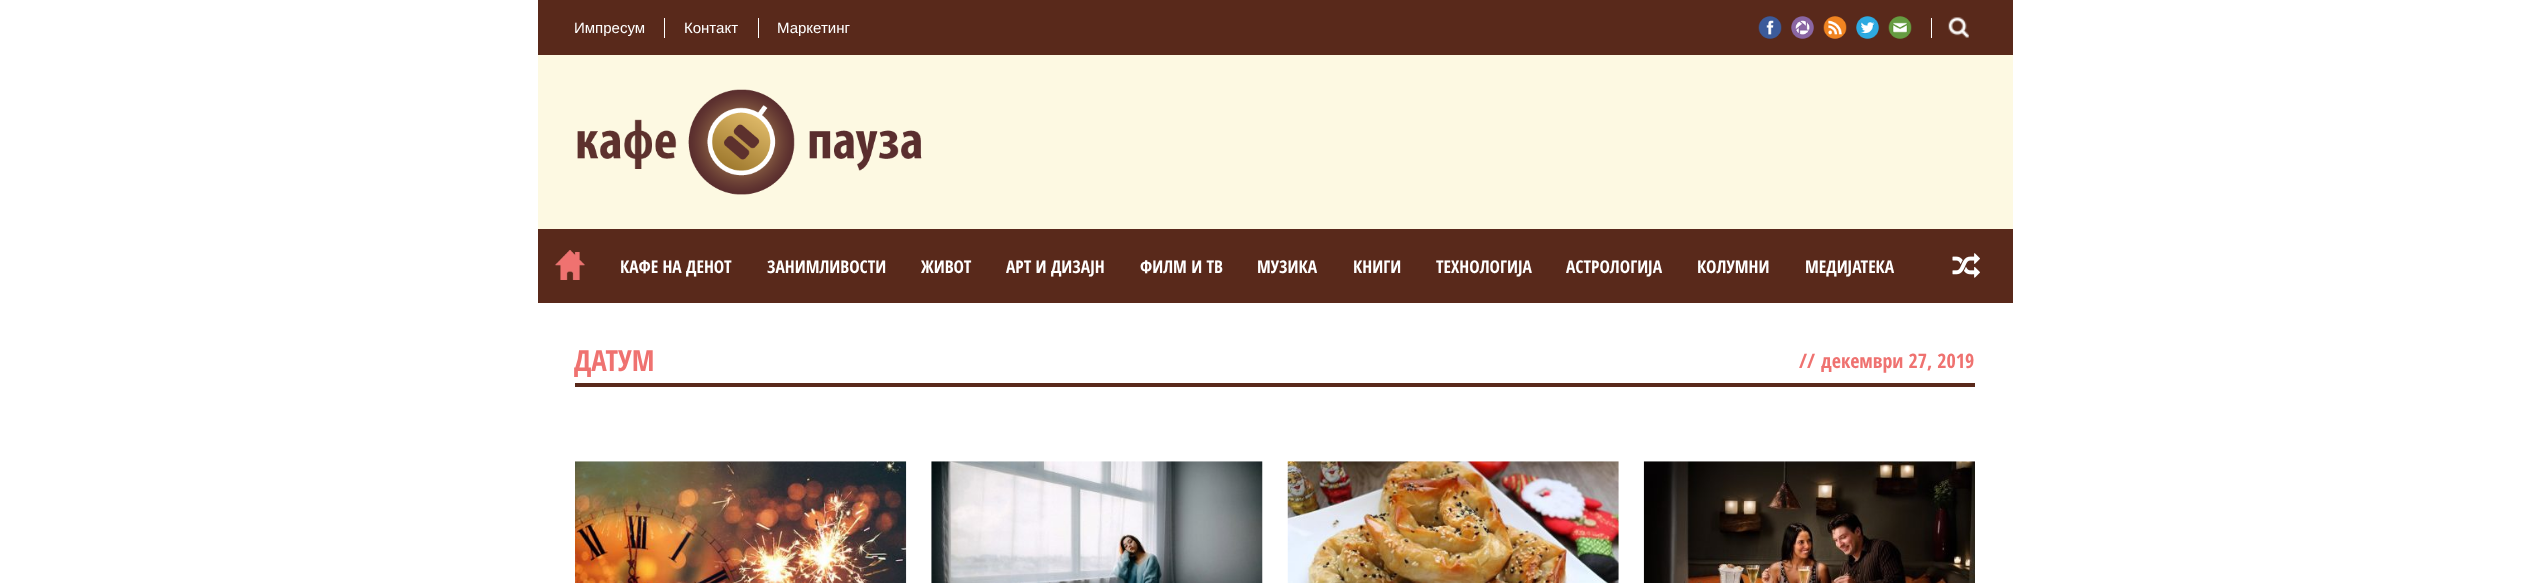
<svg xmlns="http://www.w3.org/2000/svg" width="2548" height="583" viewBox="0 0 2548 583">
  <rect width="100%" height="100%" fill="rgb(255,255,255)"/>
  <rect x="538" y="0" width="1475" height="55" fill="rgb(89,41,27)"/>
  <text x="574" y="33" font-family="Liberation Sans" font-size="15" fill="rgb(255,255,255)">Импресум</text>
  <rect x="664" y="18" width="1" height="20" fill="rgb(255,255,255)"/>
  <text x="684" y="33" font-family="Liberation Sans" font-size="15" fill="rgb(255,255,255)">Контакт</text>
  <rect x="758" y="18" width="1" height="20" fill="rgb(255,255,255)"/>
  <text x="777" y="33" font-family="Liberation Sans" font-size="15" fill="rgb(255,255,255)">Маркетинг</text>
  <image x="1758" y="16" width="24" height="23" href="pic1.png"/>
  <image x="1791" y="16" width="23" height="23" href="pic2.png"/>
  <image x="1823" y="16" width="24" height="23" href="pic3.png"/>
  <image x="1856" y="16" width="23" height="23" href="pic4.png"/>
  <image x="1888" y="16" width="24" height="23" href="pic5.png"/>
  <image x="1948" y="17" width="21" height="21" href="pic6.png"/>
  <rect x="1931" y="18" width="1" height="20" fill="rgb(255,255,255)"/>
  <rect x="538" y="55" width="1475" height="174" fill="rgb(253,249,226)"/>
  <image x="577" y="89" width="345" height="106" href="pic7.png"/>
  <rect x="538" y="229" width="1475" height="74" fill="rgb(89,41,27)"/>
  <image x="555" y="250" width="30" height="30" href="pic8.png"/>
  <g font-family="Open Sans Condensed" font-size="17.5" font-weight="bold" fill="rgb(255,255,255)">
    <text x="620" y="273">КАФЕ НА ДЕНОТ</text>
    <text x="767" y="273">ЗАНИМЛИВОСТИ</text>
    <text x="921" y="273">ЖИВОТ</text>
    <text x="1006" y="273">АРТ И ДИЗАЈН</text>
    <text x="1140" y="273">ФИЛМ И ТВ</text>
    <text x="1257" y="273">МУЗИКА</text>
    <text x="1353" y="273">КНИГИ</text>
    <text x="1436" y="273">ТЕХНОЛОГИЈА</text>
    <text x="1566" y="273">АСТРОЛОГИЈА</text>
    <text x="1697" y="273">КОЛУМНИ</text>
    <text x="1805" y="273">МЕДИЈАТЕКА</text>
  </g>
  <image x="1952" y="253" width="28" height="25" href="pic9.png"/>
  <rect x="575" y="383" width="1400" height="4" fill="rgb(89,41,27)"/>
  <text x="574" y="371" font-family="Open Sans Condensed" font-size="29" font-weight="bold" fill="rgb(239,114,112)">ДАТУМ</text>
  <g font-family="Open Sans Condensed" font-size="20" font-weight="bold" fill="rgb(239,114,112)">
    <text x="1799" y="368">//</text>
    <text x="1821" y="368">декември 27, 2019</text>
  </g>
  <image x="575" y="461" width="332" height="122" href="pic10.png"/>
  <image x="931" y="461" width="332" height="122" href="pic11.png"/>
  <image x="1287" y="461" width="332" height="122" href="pic12.png"/>
  <image x="1643" y="461" width="332" height="122" href="pic13.png"/>
</svg>
